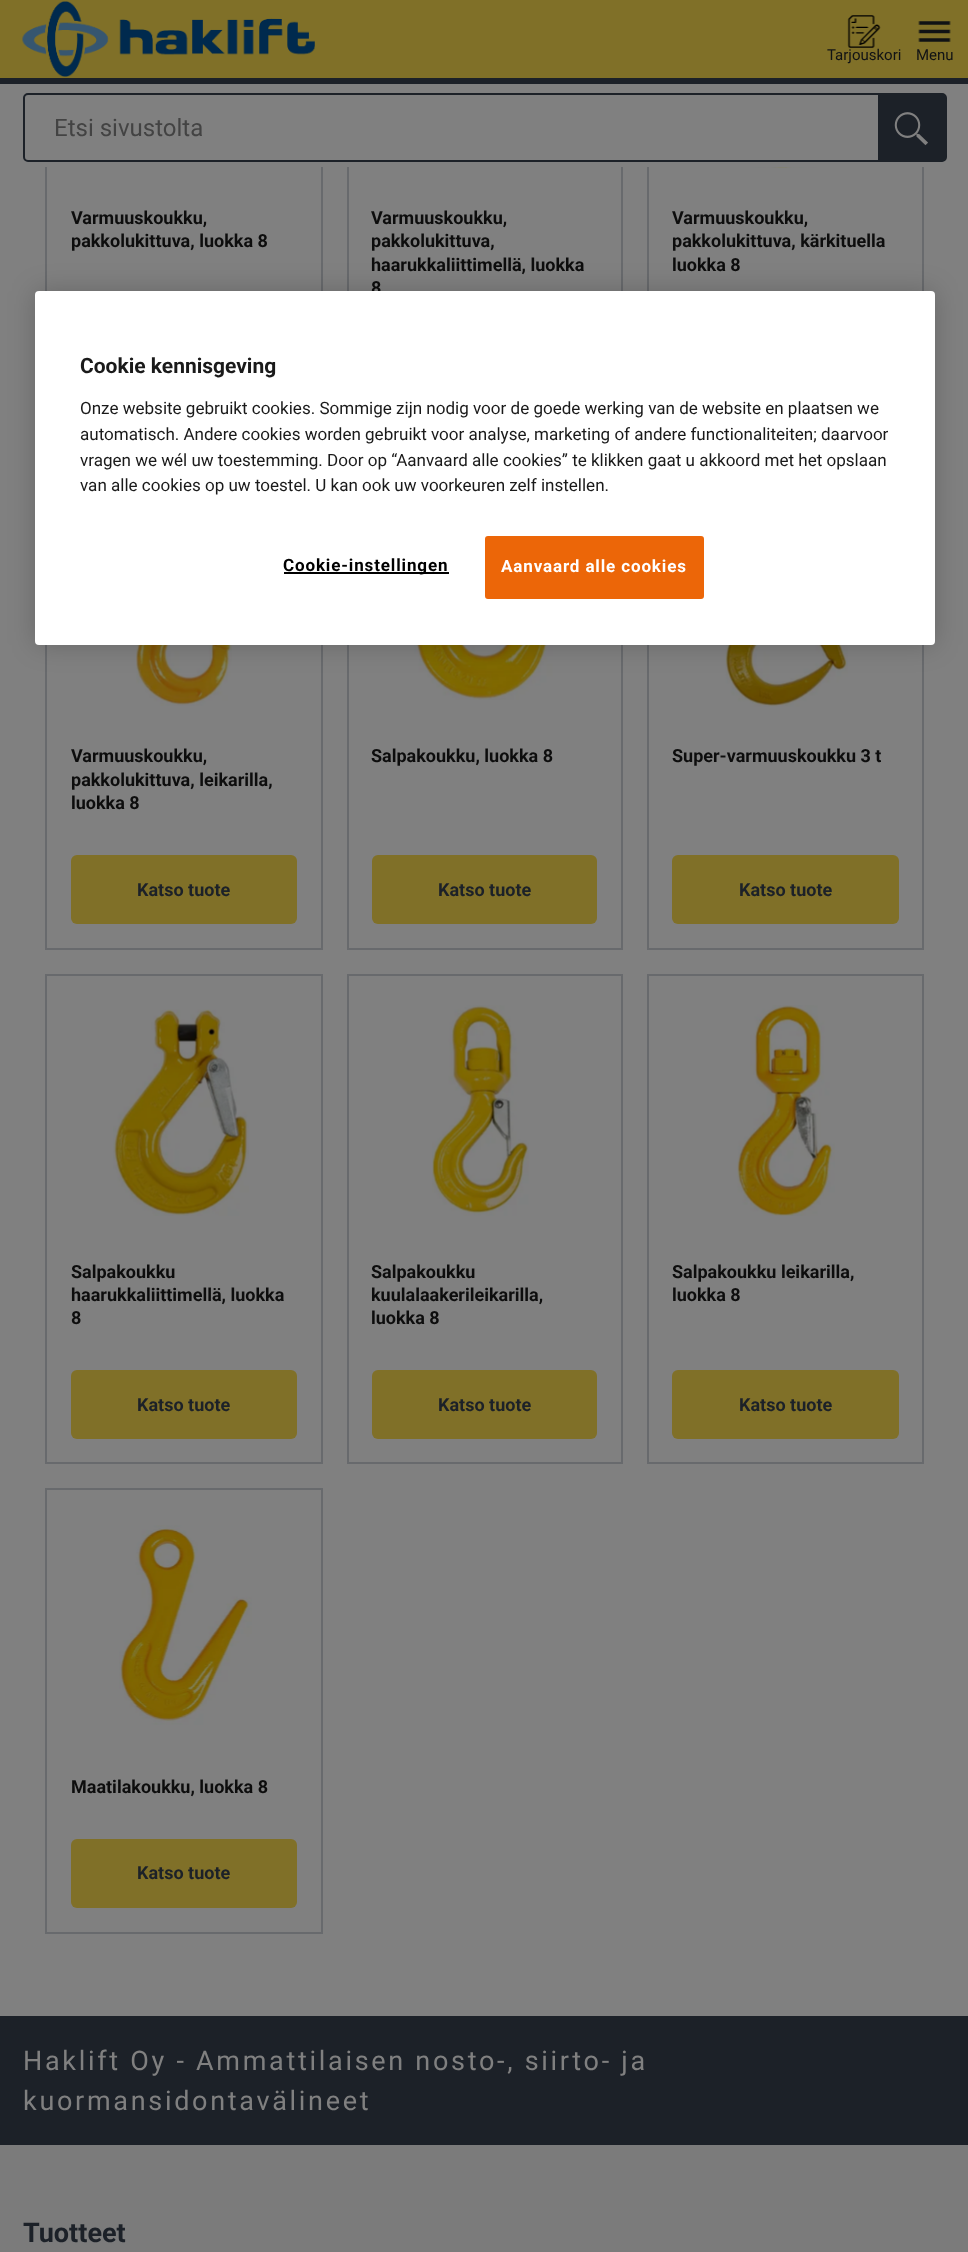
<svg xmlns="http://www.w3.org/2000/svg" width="968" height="2252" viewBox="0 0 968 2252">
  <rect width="100%" height="100%" fill="rgb(128,128,128)"/>
  <rect x="46" y="-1" width="276" height="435" fill="none" stroke="rgb(104,106,109)" stroke-width="2"/>
  <rect x="348" y="-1" width="274" height="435" fill="none" stroke="rgb(104,106,109)" stroke-width="2"/>
  <rect x="648" y="-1" width="275" height="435" fill="none" stroke="rgb(104,106,109)" stroke-width="2"/>
  <rect x="0" y="0" width="968" height="78" fill="rgb(128,112,40)"/>
  <rect x="0" y="78" width="968" height="6" fill="rgb(28,33,40)"/>
  <image x="22" y="1" width="293" height="76" href="pic1.png"/>
  <image x="847" y="15" width="34" height="33" href="pic2.png"/>
  <text x="827" y="60" font-family="Roboto" font-size="15" fill="rgb(17,19,21)">Tarjouskori</text>
  <image x="918" y="21" width="33" height="21" href="pic3.png"/>
  <text x="916" y="60" font-family="Roboto" font-size="15" fill="rgb(17,19,21)">Menu</text>
  <rect x="45" y="84" width="879" height="83" fill="rgb(128,128,128)"/>
  <rect x="24" y="94" width="922" height="67" rx="4" fill="none" stroke="rgb(28,33,40)" stroke-width="2"/>
  <text x="54" y="136" font-family="Roboto" font-size="24" fill="rgb(67,67,67)">Etsi sivustolta</text>
  <path d="M878 93H939C943.5 93 947 96.5 947 101V154C947 158.5 943.5 162 939 162H878Z" fill="rgb(28,33,40)"/>
  <image x="894" y="112" width="34" height="34" href="pic4.png"/>
  <g font-family="Roboto" font-size="18" font-weight="bold" fill="rgb(13,13,13)">
    <text>
      <tspan x="71" y="224">Varmuuskoukku,</tspan>
      <tspan x="71" y="247">pakkolukittuva, luokka 8</tspan>
    </text>
    <text>
      <tspan x="371" y="224">Varmuuskoukku,</tspan>
      <tspan x="371" y="247">pakkolukittuva,</tspan>
      <tspan x="371" y="271">haarukkaliittimellä, luokka</tspan>
      <tspan x="371" y="294">8</tspan>
    </text>
  </g>
  <image x="723" y="167" width="124" height="1" href="pic5.png"/>
  <g font-family="Roboto" font-size="18" font-weight="bold" fill="rgb(13,13,13)">
    <text>
      <tspan x="672" y="224">Varmuuskoukku,</tspan>
      <tspan x="672" y="247">pakkolukittuva, kärkituella</tspan>
      <tspan x="672" y="271">luokka 8</tspan>
    </text>
  </g>
  <rect x="46" y="460" width="276" height="489" fill="none" stroke="rgb(104,106,109)" stroke-width="2"/>
  <image x="136" y="645" width="96" height="61" href="pic6.png"/>
  <g font-family="Roboto" font-size="18" font-weight="bold" fill="rgb(13,13,13)">
    <text>
      <tspan x="71" y="762">Varmuuskoukku,</tspan>
      <tspan x="71" y="786">pakkolukittuva, leikarilla,</tspan>
      <tspan x="71" y="809">luokka 8</tspan>
    </text>
  </g>
  <rect x="71" y="855" width="226" height="69" rx="6" fill="rgb(128,112,40)"/>
  <text x="137" y="896" font-family="Roboto" font-size="18" font-weight="bold" fill="rgb(28,33,40)">Katso tuote</text>
  <rect x="348" y="460" width="274" height="489" fill="none" stroke="rgb(104,106,109)" stroke-width="2"/>
  <image x="414" y="645" width="145" height="55" href="pic7.png"/>
  <text x="371" y="762" font-family="Roboto" font-size="18" font-weight="bold" fill="rgb(13,13,13)">Salpakoukku, luokka 8</text>
  <rect x="372" y="855" width="225" height="69" rx="6" fill="rgb(128,112,40)"/>
  <text x="438" y="896" font-family="Roboto" font-size="18" font-weight="bold" fill="rgb(28,33,40)">Katso tuote</text>
  <rect x="648" y="460" width="275" height="489" fill="none" stroke="rgb(104,106,109)" stroke-width="2"/>
  <image x="725" y="645" width="123" height="62" href="pic8.png"/>
  <text x="672" y="762" font-family="Roboto" font-size="18" font-weight="bold" fill="rgb(13,13,13)">Super-varmuuskoukku 3 t</text>
  <rect x="672" y="855" width="227" height="69" rx="6" fill="rgb(128,112,40)"/>
  <text x="739" y="896" font-family="Roboto" font-size="18" font-weight="bold" fill="rgb(28,33,40)">Katso tuote</text>
  <rect x="46" y="975" width="276" height="488" fill="none" stroke="rgb(104,106,109)" stroke-width="2"/>
  <image x="113" y="1009" width="136" height="207" href="pic9.png"/>
  <g font-family="Roboto" font-size="18" font-weight="bold" fill="rgb(13,13,13)">
    <text>
      <tspan x="71" y="1278">Salpakoukku</tspan>
      <tspan x="71" y="1301">haarukkaliittimellä, luokka</tspan>
      <tspan x="71" y="1324">8</tspan>
    </text>
  </g>
  <rect x="71" y="1370" width="226" height="69" rx="6" fill="rgb(128,112,40)"/>
  <text x="137" y="1411" font-family="Roboto" font-size="18" font-weight="bold" fill="rgb(28,33,40)">Katso tuote</text>
  <rect x="348" y="975" width="274" height="488" fill="none" stroke="rgb(104,106,109)" stroke-width="2"/>
  <image x="432" y="1005" width="97" height="211" href="pic10.png"/>
  <g font-family="Roboto" font-size="18" font-weight="bold" fill="rgb(13,13,13)">
    <text>
      <tspan x="371" y="1278">Salpakoukku</tspan>
      <tspan x="371" y="1301">kuulalaakerileikarilla,</tspan>
      <tspan x="371" y="1324">luokka 8</tspan>
    </text>
  </g>
  <rect x="372" y="1370" width="225" height="69" rx="6" fill="rgb(128,112,40)"/>
  <text x="438" y="1411" font-family="Roboto" font-size="18" font-weight="bold" fill="rgb(28,33,40)">Katso tuote</text>
  <rect x="648" y="975" width="275" height="488" fill="none" stroke="rgb(104,106,109)" stroke-width="2"/>
  <image x="737" y="1005" width="98" height="211" href="pic11.png"/>
  <g font-family="Roboto" font-size="18" font-weight="bold" fill="rgb(13,13,13)">
    <text>
      <tspan x="672" y="1278">Salpakoukku leikarilla,</tspan>
      <tspan x="672" y="1301">luokka 8</tspan>
    </text>
  </g>
  <rect x="672" y="1370" width="227" height="69" rx="6" fill="rgb(128,112,40)"/>
  <text x="739" y="1411" font-family="Roboto" font-size="18" font-weight="bold" fill="rgb(28,33,40)">Katso tuote</text>
  <rect x="46" y="1489" width="276" height="444" fill="none" stroke="rgb(104,106,109)" stroke-width="2"/>
  <image x="119" y="1525" width="133" height="200" href="pic12.png"/>
  <text x="71" y="1793" font-family="Roboto" font-size="18" font-weight="bold" fill="rgb(13,13,13)">Maatilakoukku, luokka 8</text>
  <rect x="71" y="1839" width="226" height="69" rx="6" fill="rgb(128,112,40)"/>
  <text x="137" y="1879" font-family="Roboto" font-size="18" font-weight="bold" fill="rgb(28,33,40)">Katso tuote</text>
  <rect x="35" y="291" width="900" height="354" rx="4" fill="rgba(0,0,0,0.2)" filter="blur(13.5px)"/>
  <rect x="35" y="291" width="900" height="354" rx="4" fill="rgb(255,255,255)"/>
  <text x="80" y="373" font-family="Roboto" font-size="21" font-weight="bold" fill="rgb(26,26,26)">Cookie kennisgeving</text>
  <g font-family="Roboto" font-size="17.05" fill="rgb(26,26,26)">
    <text>
      <tspan x="80" y="414">Onze website gebruikt cookies. Sommige zijn nodig voor de goede werking van de website en plaatsen we</tspan>
      <tspan x="80" y="440">automatisch. Andere cookies worden gebruikt voor analyse, marketing of andere functionaliteiten; daarvoor</tspan>
      <tspan x="80" y="466">vragen we wél uw toestemming. Door op “Aanvaard alle cookies” te klikken gaat u akkoord met het opslaan</tspan>
      <tspan x="80" y="491">van alle cookies op uw toestel. U kan ook uw voorkeuren zelf instellen.</tspan>
    </text>
  </g>
  <rect x="284" y="572" width="165" height="2" fill="rgb(0,0,0)"/>
  <text x="283" y="571" font-family="Roboto" font-size="17.05" font-weight="bold" letter-spacing="0.85" fill="rgb(0,0,0)">Cookie-instellingen</text>
  <rect x="486" y="537" width="217" height="61" rx="2" fill="rgb(236,102,8)" stroke="rgb(236,102,8)" stroke-width="2"/>
  <text x="501" y="572" font-family="Roboto" font-size="17.05" font-weight="bold" letter-spacing="0.85" fill="rgb(255,255,255)">Aanvaard alle cookies</text>
  <rect x="0" y="2145" width="968" height="107" fill="rgb(123,123,123)"/>
  <rect x="0" y="2016" width="968" height="129" fill="rgb(28,33,40)"/>
  <g font-family="Roboto" font-size="27" letter-spacing="2.7" fill="rgb(128,128,128)">
    <text>
      <tspan x="23" y="2070">Haklift Oy - Ammattilaisen nosto-, siirto- ja</tspan>
      <tspan x="23" y="2110">kuormansidontavälineet</tspan>
    </text>
  </g>
  <text x="23" y="2242" font-family="Roboto" font-size="27" font-weight="bold" fill="rgb(28,33,40)">Tuotteet</text>
</svg>
